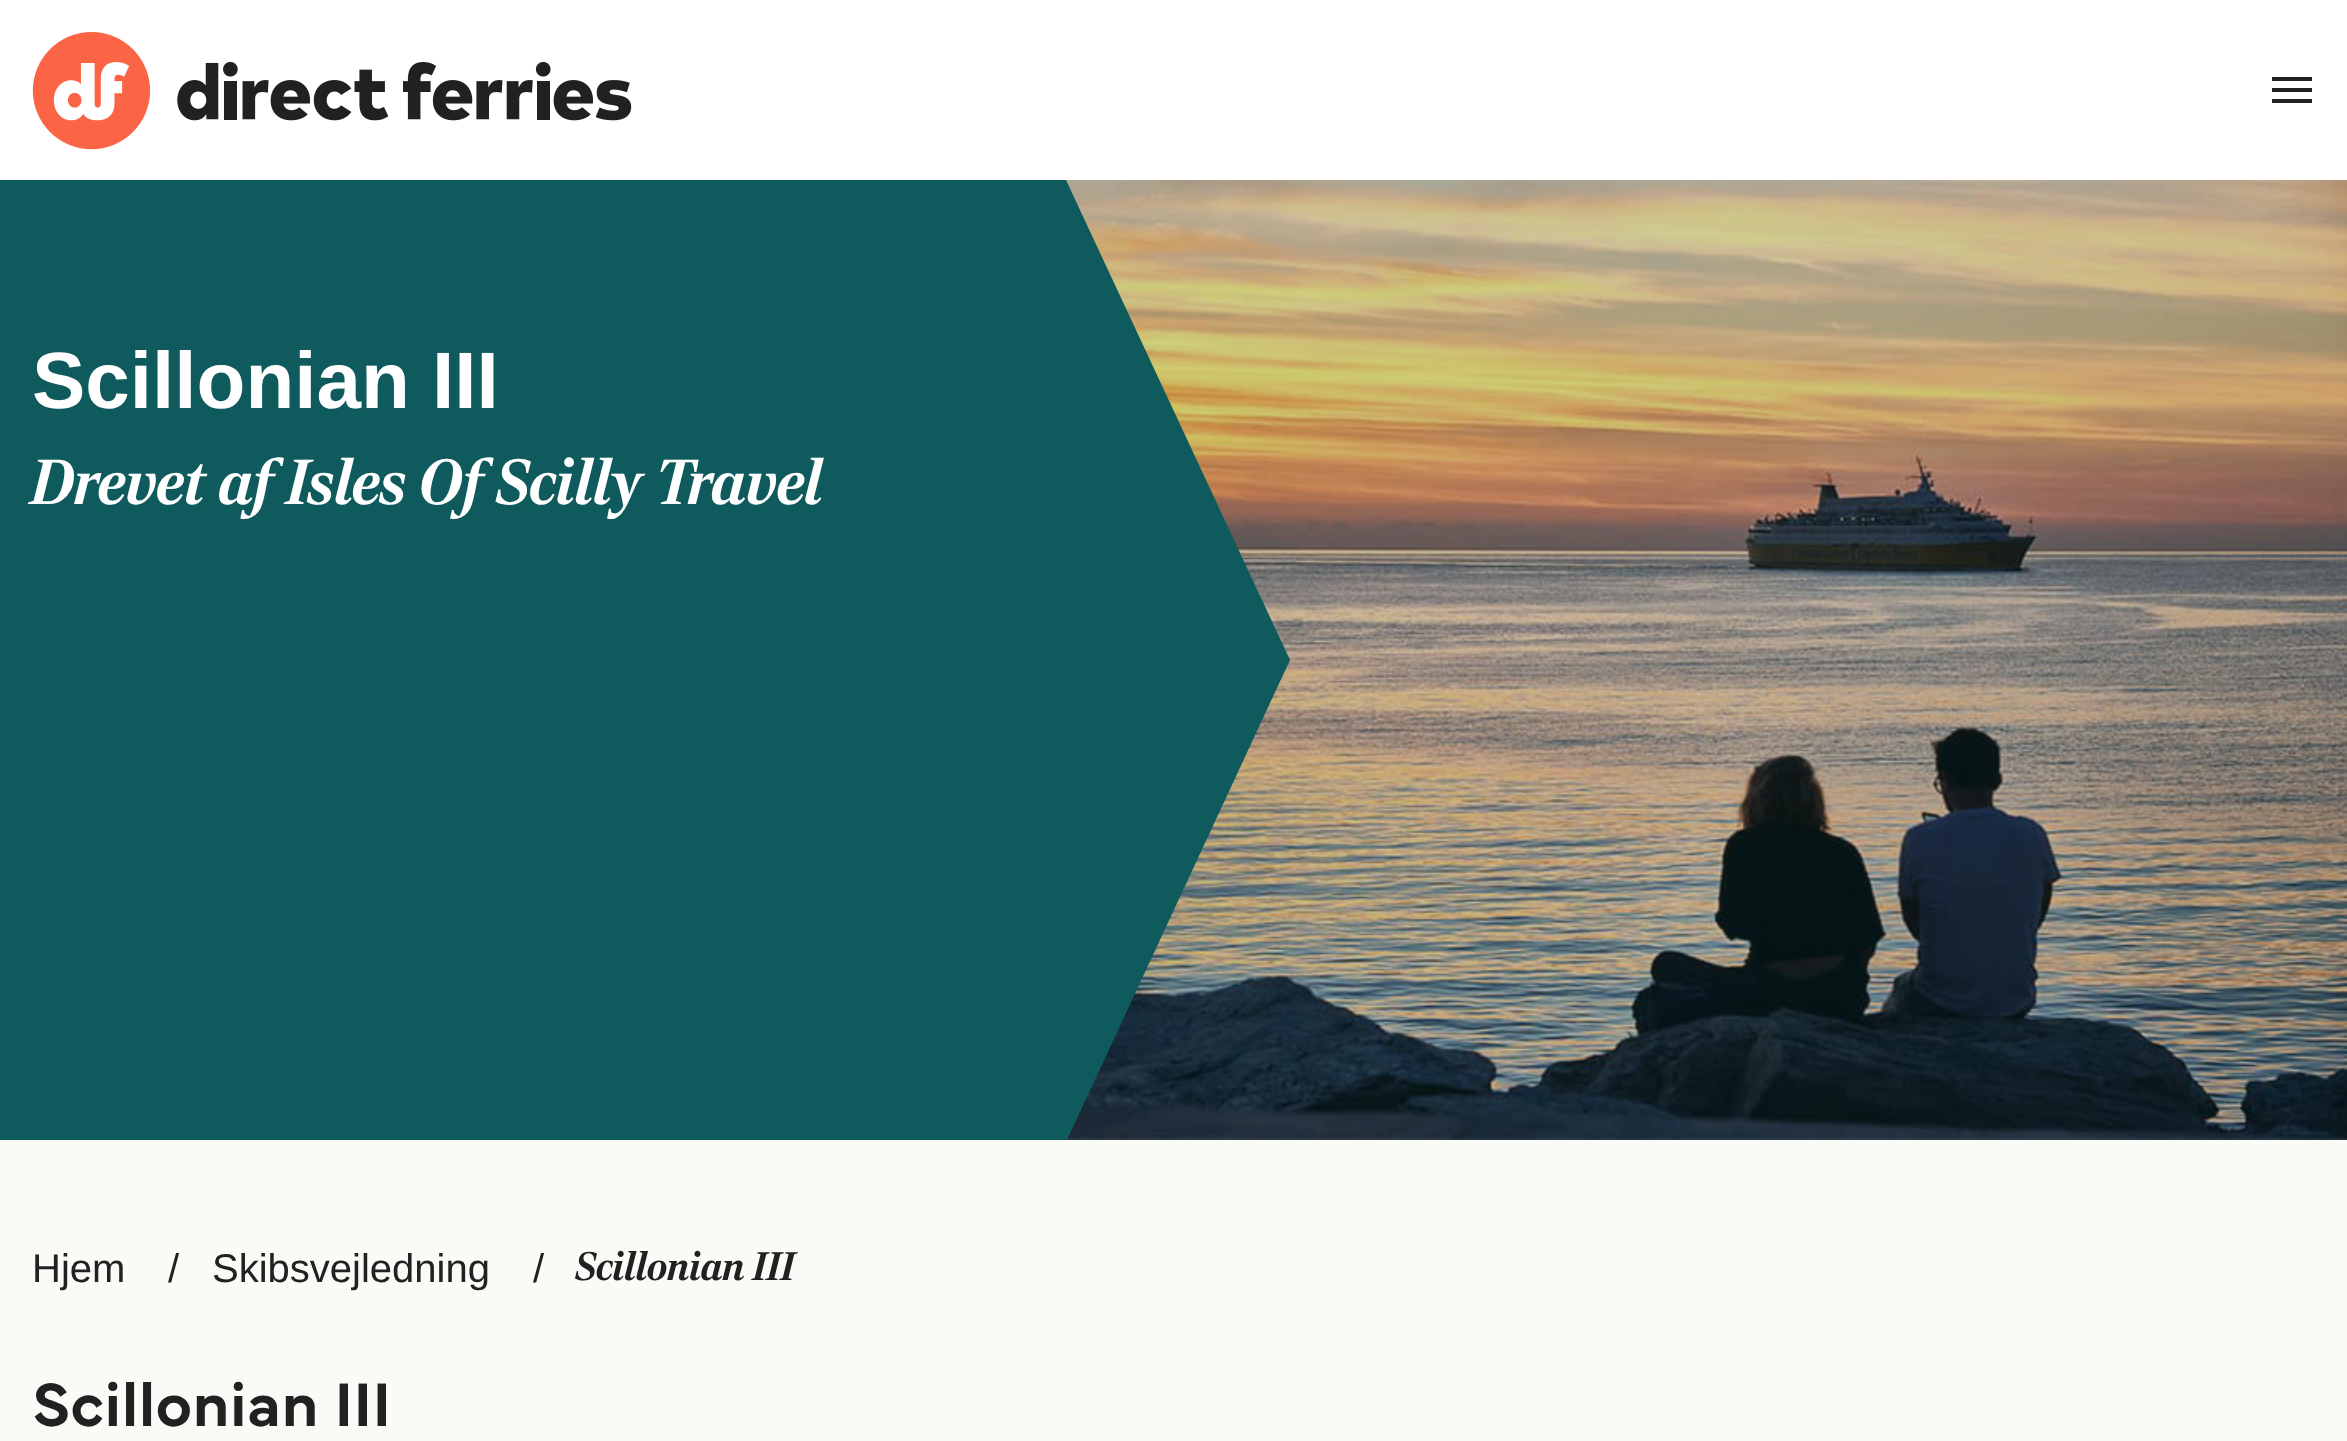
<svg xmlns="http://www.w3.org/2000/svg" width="2347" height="1441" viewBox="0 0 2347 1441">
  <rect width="100%" height="100%" fill="rgb(255,255,255)"/>
  <image x="32" y="32" width="600" height="118" href="pic1.png"/>
  <rect x="2272" y="77" width="40" height="4" fill="rgb(33,33,33)"/>
  <rect x="2272" y="88" width="40" height="4" fill="rgb(33,33,33)"/>
  <rect x="2272" y="99" width="40" height="4" fill="rgb(33,33,33)"/>
  <image x="1066" y="180" width="1281" height="960" href="pic2.png"/>
  <path d="M-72 180H1066L1290 660L1067 1140H-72Z" fill="rgb(15,90,92)"/>
  <text x="32" y="408" font-family="Liberation Sans" font-size="80" font-weight="bold" fill="rgb(255,255,255)">Scillonian III</text>
  <text x="32" y="504" font-family="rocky" font-size="64" font-weight="bold" font-style="italic" fill="rgb(255,255,255)">Drevet af Isles Of Scilly Travel</text>
  <rect x="0" y="1140" width="2347" height="301" fill="rgb(250,250,247)"/>
  <g font-family="Liberation Sans" font-size="40" fill="rgb(33,33,33)">
    <text x="32" y="1282">Hjem</text>
    <text x="168" y="1282">/</text>
    <text x="212" y="1282">Skibsvejledning</text>
    <text x="533" y="1282">/</text>
  </g>
  <text x="576" y="1280" font-family="rocky" font-size="40" font-weight="bold" font-style="italic" fill="rgb(33,33,33)">Scillonian III</text>
  <text x="32" y="1426" font-family="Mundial" font-size="64" font-weight="600" fill="rgb(33,33,33)">Scillonian III</text>
</svg>
